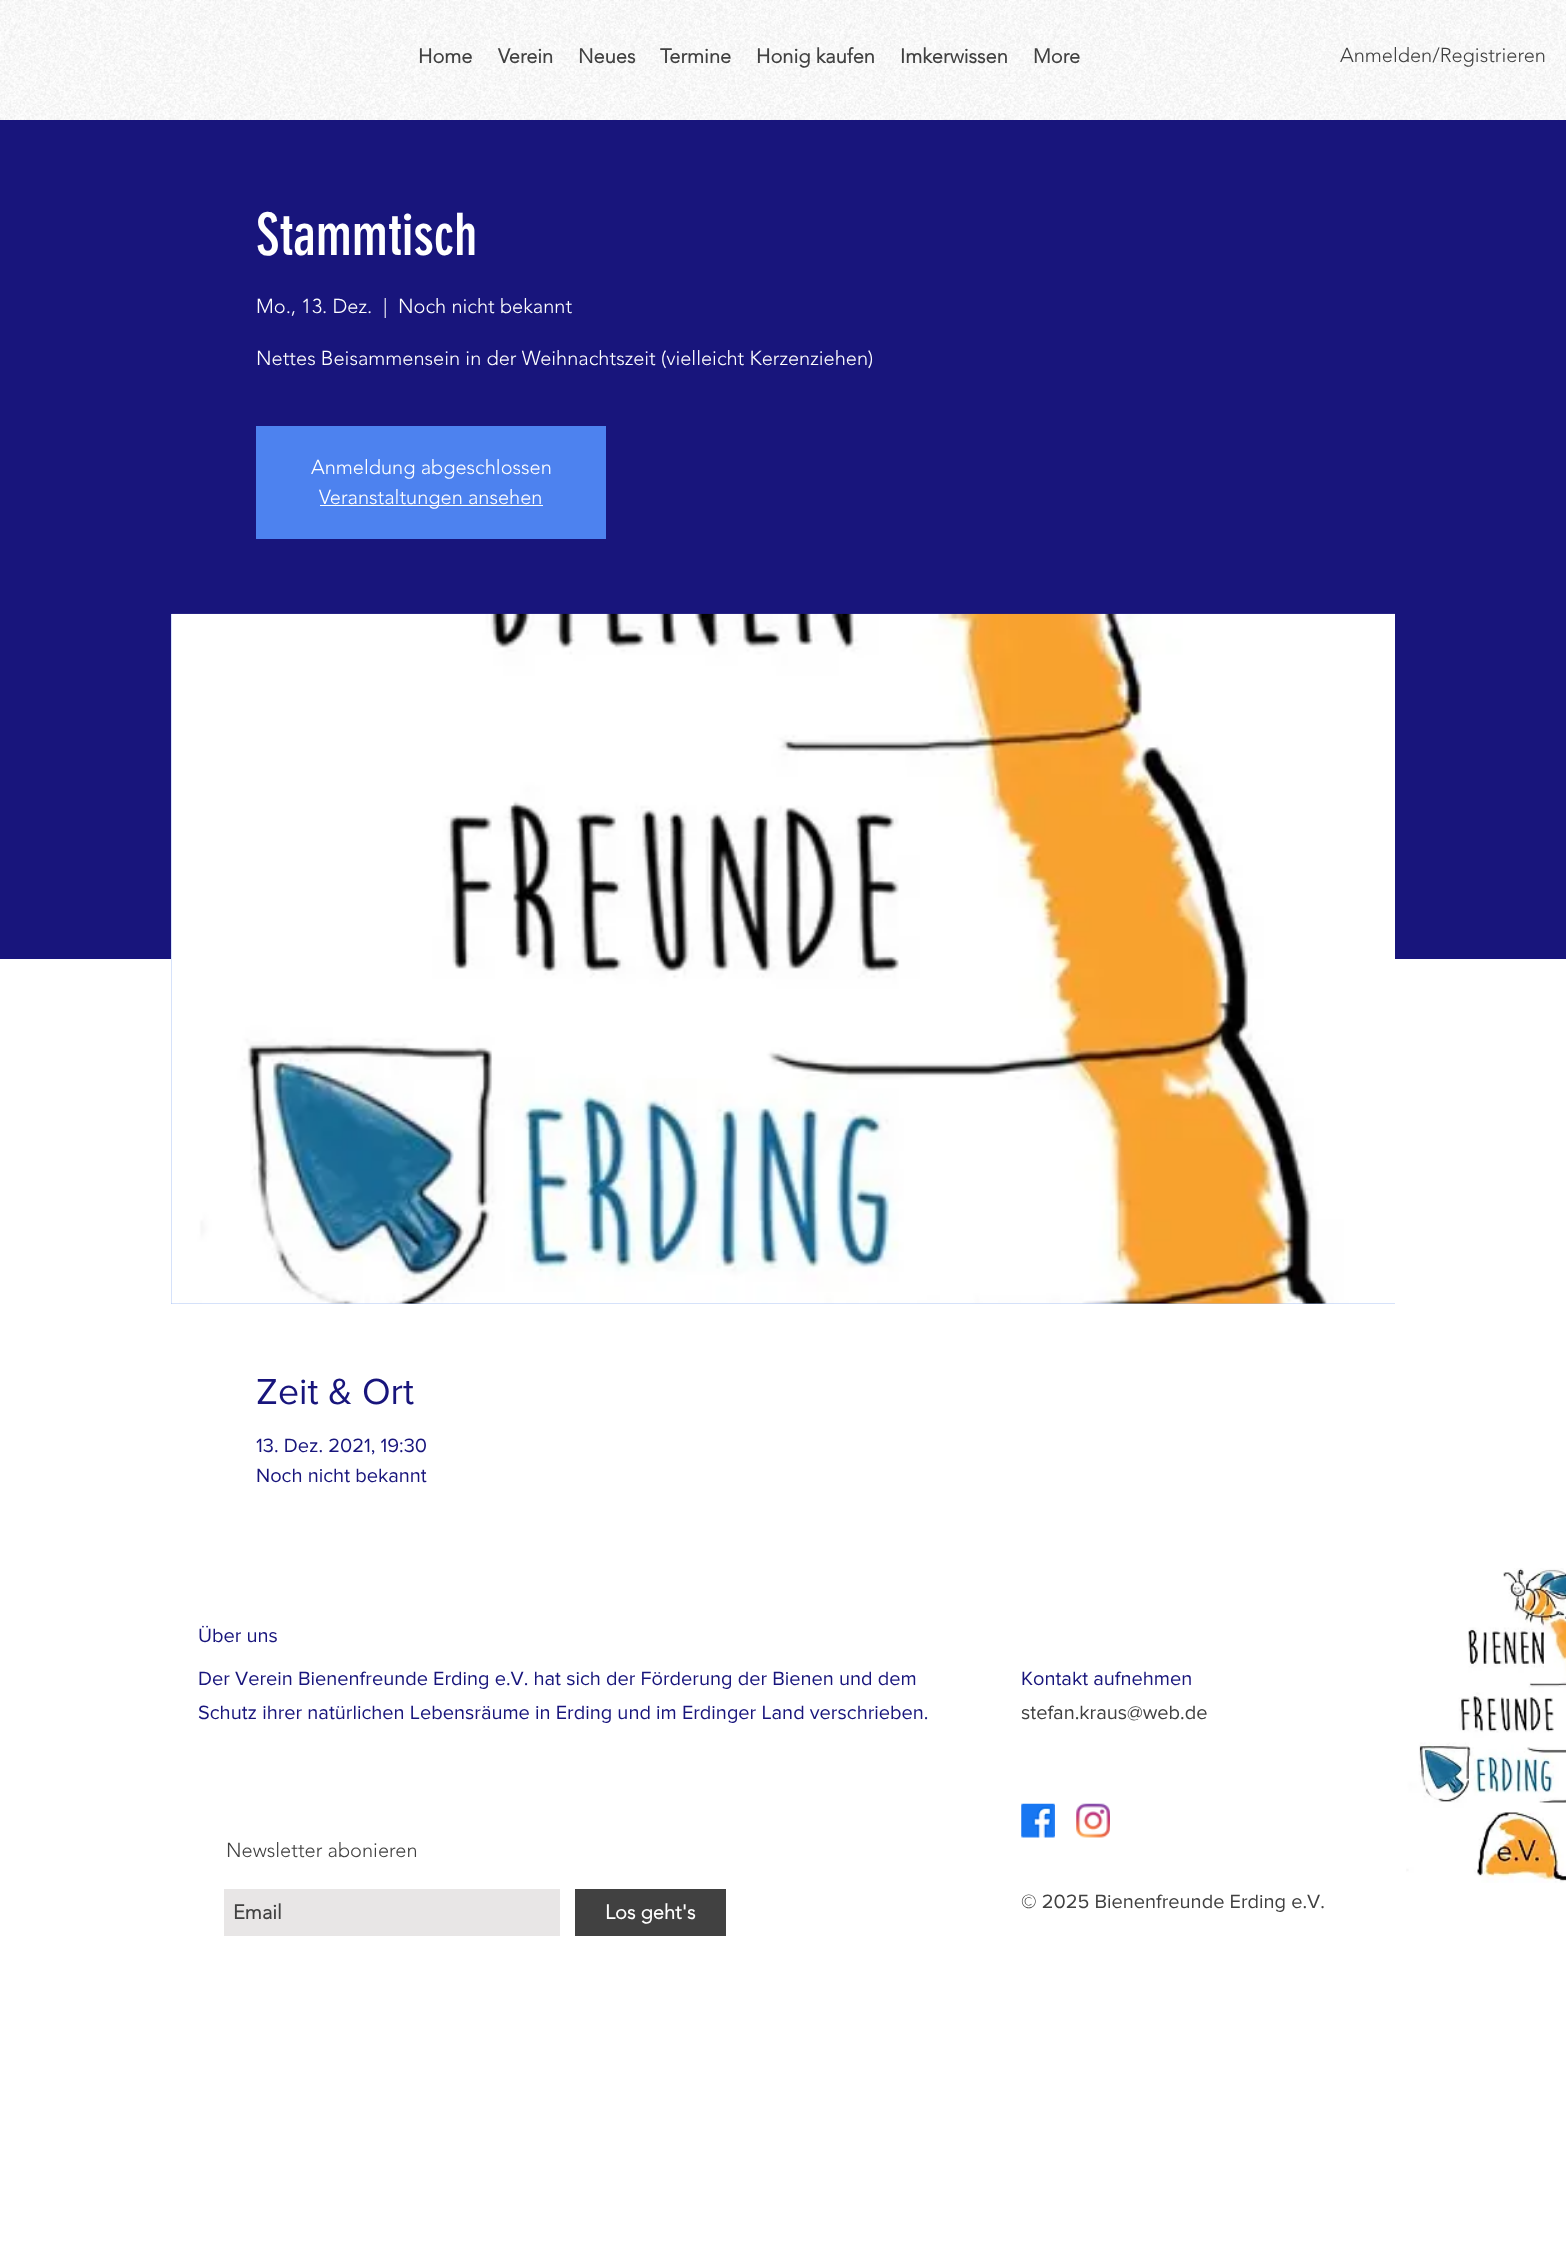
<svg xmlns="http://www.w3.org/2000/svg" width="1566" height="2257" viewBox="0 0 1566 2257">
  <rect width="100%" height="100%" fill="rgb(255,255,255)"/>
  <image x="0" y="0" width="1566" height="120" href="pic1.png"/>
  <g font-family="'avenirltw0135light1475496'" font-size="20" font-weight="bold" fill="rgb(65,65,65)">
    <text x="418" y="63">Home</text>
    <text x="498" y="63">Verein</text>
    <text x="578" y="63">Neues</text>
    <text x="660" y="63">Termine</text>
    <text x="756" y="63">Honig kaufen</text>
    <text x="900" y="63">Imkerwissen</text>
    <text x="1033" y="63">More</text>
  </g>
  <text x="1340" y="62" font-family="'avenirltw0135light1475496'" font-size="20" font-weight="300" fill="rgb(65,65,65)">Anmelden/Registrieren</text>
  <rect x="0" y="120" width="1566" height="839" fill="rgb(24,21,124)"/>
  <text x="256" y="255" font-family="'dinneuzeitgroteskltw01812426'" font-size="57.5" fill="rgb(255,255,255)">Stammtisch</text>
  <g font-family="'avenirltw0135light1475496'" font-size="20" font-weight="300" fill="rgb(255,255,255)">
    <text x="256" y="313">Mo., 13. Dez.</text>
    <text x="383" y="313">|</text>
    <text x="398" y="313">Noch nicht bekannt</text>
    <text x="256" y="365">Nettes Beisammensein in der Weihnachtszeit (vielleicht Kerzenziehen)</text>
  </g>
  <rect x="256" y="426" width="350" height="113" fill="rgb(77,130,239)"/>
  <text x="311" y="474" font-family="'avenirltw0135light1475496'" font-size="20" font-weight="300" fill="rgb(255,255,255)">Anmeldung abgeschlossen</text>
  <rect x="320" y="505" width="223" height="1" fill="rgb(255,255,255)"/>
  <text x="319" y="504" font-family="'avenirltw0135light1475496'" font-size="20" font-weight="300" fill="rgb(255,255,255)">Veranstaltungen ansehen</text>
  <rect x="171" y="614" width="1224" height="690" fill="rgb(162,189,244)"/>
  <image x="171" y="613" width="1224" height="691" href="pic2.png"/>
  <text x="256" y="1404" font-family="'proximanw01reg'" font-size="37.5" fill="rgb(24,21,124)">Zeit &amp; Ort</text>
  <g font-family="'proximanw01reg'" font-size="20" fill="rgb(24,21,124)">
    <text>
      <tspan x="256" y="1452">13. Dez. 2021, 19:30</tspan>
      <tspan x="256" y="1482">Noch nicht bekannt</tspan>
    </text>
    <text x="198" y="1642">Über uns</text>
  </g>
  <image x="1406" y="1568" width="160" height="315" href="pic3.png"/>
  <g font-family="'proximanw01reg'" font-size="20" fill="rgb(24,21,124)">
    <text>
      <tspan x="198" y="1685">Der Verein Bienenfreunde Erding e.V. hat sich der Förderung der Bienen und dem</tspan>
      <tspan x="198" y="1719">Schutz ihrer natürlichen Lebensräume in Erding und im Erdinger Land verschrieben.</tspan>
    </text>
    <text x="1021" y="1685">Kontakt aufnehmen</text>
  </g>
  <text x="1021" y="1719" font-family="'proximanw01reg'" font-size="20" fill="rgb(65,65,65)">stefan.kraus@web.de</text>
  <image x="1021" y="1803" width="34" height="35" href="pic4.png"/>
  <image x="1076" y="1803" width="34" height="35" href="pic5.png"/>
  <text x="226" y="1857" font-family="'avenirltw0135light1475496'" font-size="20" font-weight="300" fill="rgb(65,65,65)">Newsletter abonieren</text>
  <rect x="224" y="1889" width="336" height="47" fill="rgb(232,230,230)"/>
  <text x="233" y="1919" font-family="'avenirltw0135light1475496'" font-size="20" font-weight="bold" fill="rgb(65,65,65)">Email</text>
  <rect x="575" y="1889" width="151" height="47" fill="rgb(65,65,65)"/>
  <text x="605" y="1919" font-family="'avenirltw0135light1475496'" font-size="20" font-weight="bold" fill="rgb(255,255,255)">Los geht's</text>
  <text x="1021" y="1908" font-family="'proximanw01reg'" font-size="20" fill="rgb(65,65,65)">© 2025 Bienenfreunde Erding e.V.</text>
</svg>
